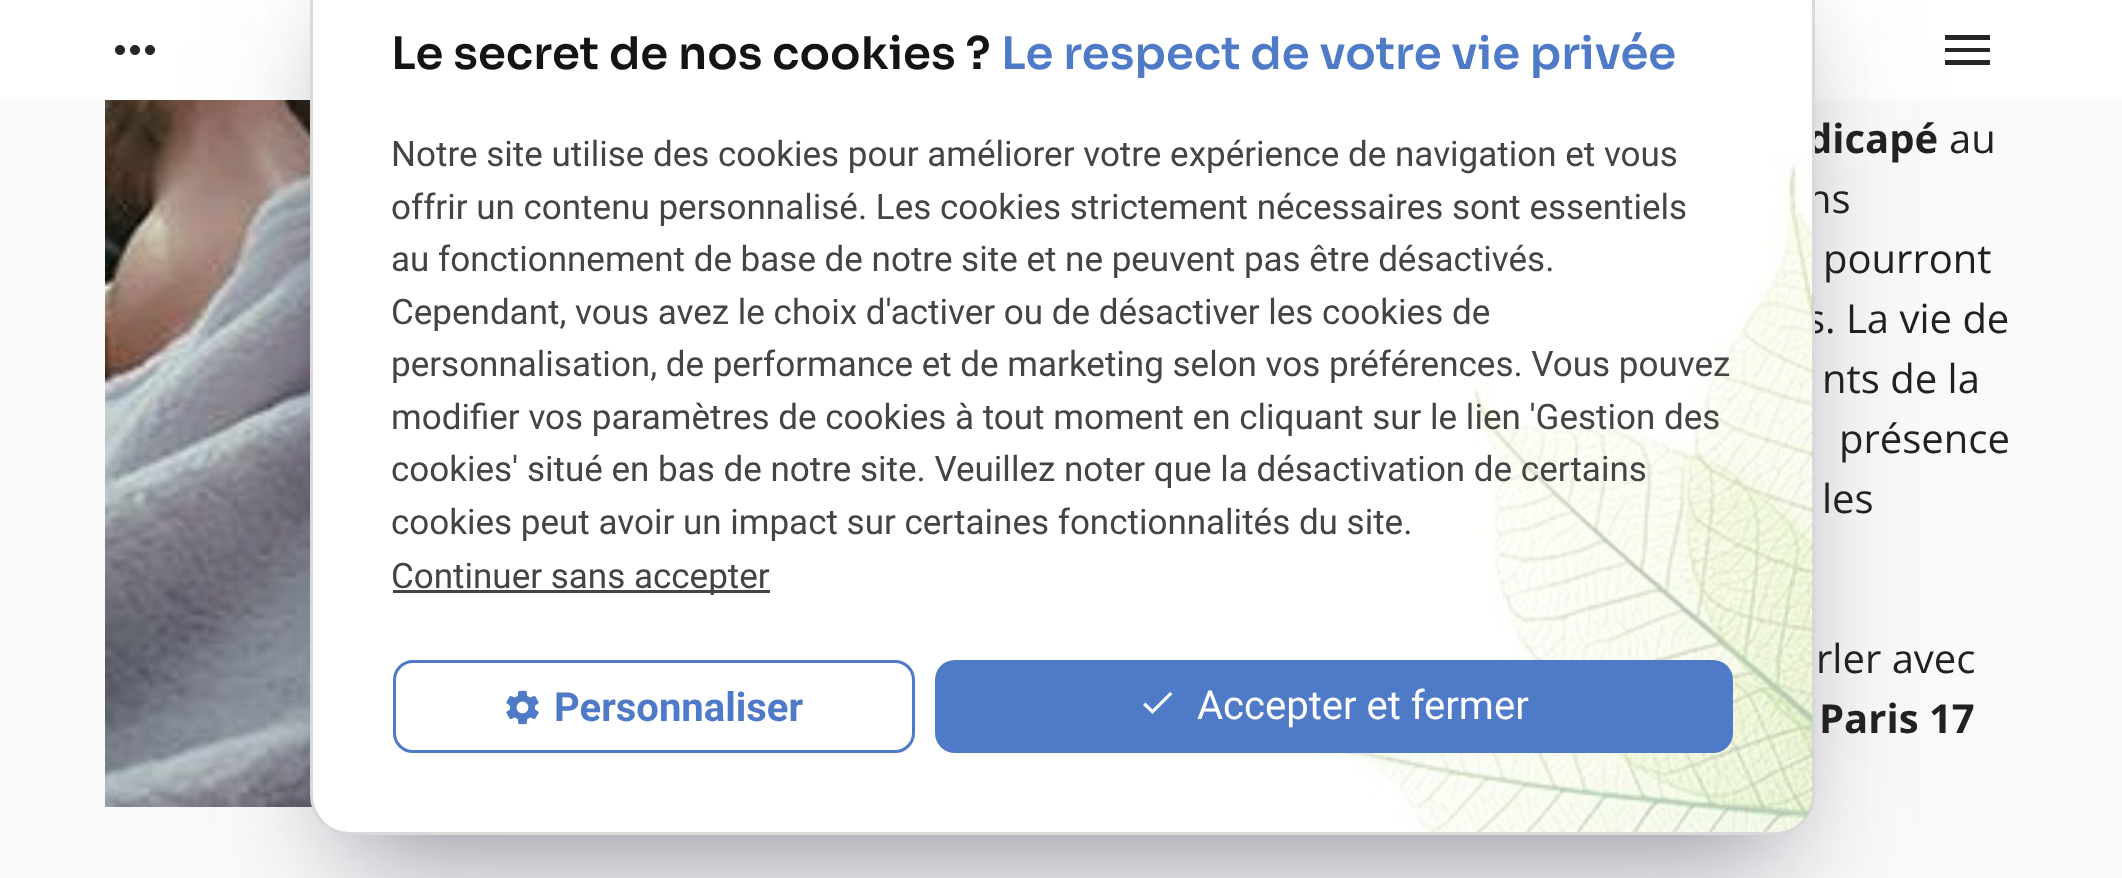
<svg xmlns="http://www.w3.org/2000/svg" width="2122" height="878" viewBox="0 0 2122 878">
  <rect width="100%" height="100%" fill="rgb(250,250,250)"/>
  <rect x="0" y="0" width="2122" height="100" fill="rgb(255,255,255)"/>
  <image x="115" y="45" width="40" height="10" href="pic1.png"/>
  <path d="M1945 35H1990V40H1945ZM1945 52V48H1990V52ZM1945 65V60H1990V65Z" fill="rgb(38,38,38)"/>
  <image x="105" y="100" width="207" height="707" href="pic4.png"/>
  <rect x="355" y="28" width="1415" height="807" fill="rgba(0,0,0,0.3)" filter="blur(45px)"/>
  <rect x="340" y="43" width="1445" height="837" rx="10" fill="rgba(50,50,93,0.25)" filter="blur(75px)"/>
  <text x="1807" y="153" font-family="Open Sans" font-size="40" font-weight="bold" fill="rgb(33,33,33)">dicapé</text>
  <g font-family="Open Sans" font-size="40" fill="rgb(33,33,33)">
    <text x="1807" y="213">ns</text>
    <text x="1806" y="333">s. La vie de</text>
  </g>
  <rect x="311.5" y="-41.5" width="1502" height="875" rx="38.5" fill="rgb(255,255,255)" stroke="rgb(217,217,217)" stroke-width="3"/>
  <text x="391" y="69" font-family="Sora" font-size="45" font-weight="600" fill="rgb(20,20,20)">Le secret de nos cookies ?</text>
  <text x="1001" y="69" font-family="Sora" font-size="45" font-weight="600" fill="rgb(78,122,199)">Le respect de votre vie privée</text>
  <image x="1312" y="157" width="501" height="675" href="pic3.png"/>
  <g font-family="Roboto" font-size="35" fill="rgb(68,68,68)">
    <text>
      <tspan x="391" y="166">Notre site utilise des cookies pour améliorer votre expérience de navigation et vous</tspan>
      <tspan x="391" y="219">offrir un contenu personnalisé. Les cookies strictement nécessaires sont essentiels</tspan>
      <tspan x="391" y="271">au fonctionnement de base de notre site et ne peuvent pas être désactivés.</tspan>
      <tspan x="391" y="324">Cependant, vous avez le choix d'activer ou de désactiver les cookies de</tspan>
      <tspan x="391" y="376">personnalisation, de performance et de marketing selon vos préférences. Vous pouvez</tspan>
      <tspan x="391" y="429">modifier vos paramètres de cookies à tout moment en cliquant sur le lien 'Gestion des</tspan>
      <tspan x="391" y="481">cookies' situé en bas de notre site. Veuillez noter que la désactivation de certains</tspan>
      <tspan x="391" y="534">cookies peut avoir un impact sur certaines fonctionnalités du site.</tspan>
    </text>
  </g>
  <rect x="393" y="590" width="377" height="3" fill="rgb(68,68,68)"/>
  <text x="391" y="588" font-family="Roboto" font-size="35" fill="rgb(68,68,68)">Continuer sans accepter</text>
  <rect x="394.5" y="661.5" width="519" height="90" rx="18.5" fill="none" stroke="rgb(78,122,199)" stroke-width="3"/>
  <image x="506" y="690" width="33" height="35" href="pic2.png"/>
  <text x="554" y="721" font-family="Roboto" font-size="40" font-weight="bold" fill="rgb(78,122,199)">Personnaliser</text>
  <rect x="935" y="660" width="798" height="93" rx="20" fill="rgb(78,122,199)"/>
  <path d="M1152.5 709.5L1170 692L1172.5 694L1152.5 714L1143 705L1145.5 702.5Z" fill="rgb(255,255,255)"/>
  <text x="1197" y="719" font-family="Roboto" font-size="40" fill="rgb(255,255,255)">Accepter et fermer</text>
  <g font-family="Open Sans" font-size="40" fill="rgb(33,33,33)">
    <text x="1949" y="153">au</text>
    <text x="1823" y="273">pourront</text>
    <text x="1822" y="393">nts de la</text>
    <text x="1839" y="453">présence</text>
    <text x="1822" y="513">les</text>
    <text x="1816" y="673">rler avec</text>
  </g>
  <text x="1819" y="733" font-family="Open Sans" font-size="40" font-weight="bold" fill="rgb(33,33,33)">Paris 17</text>
</svg>
